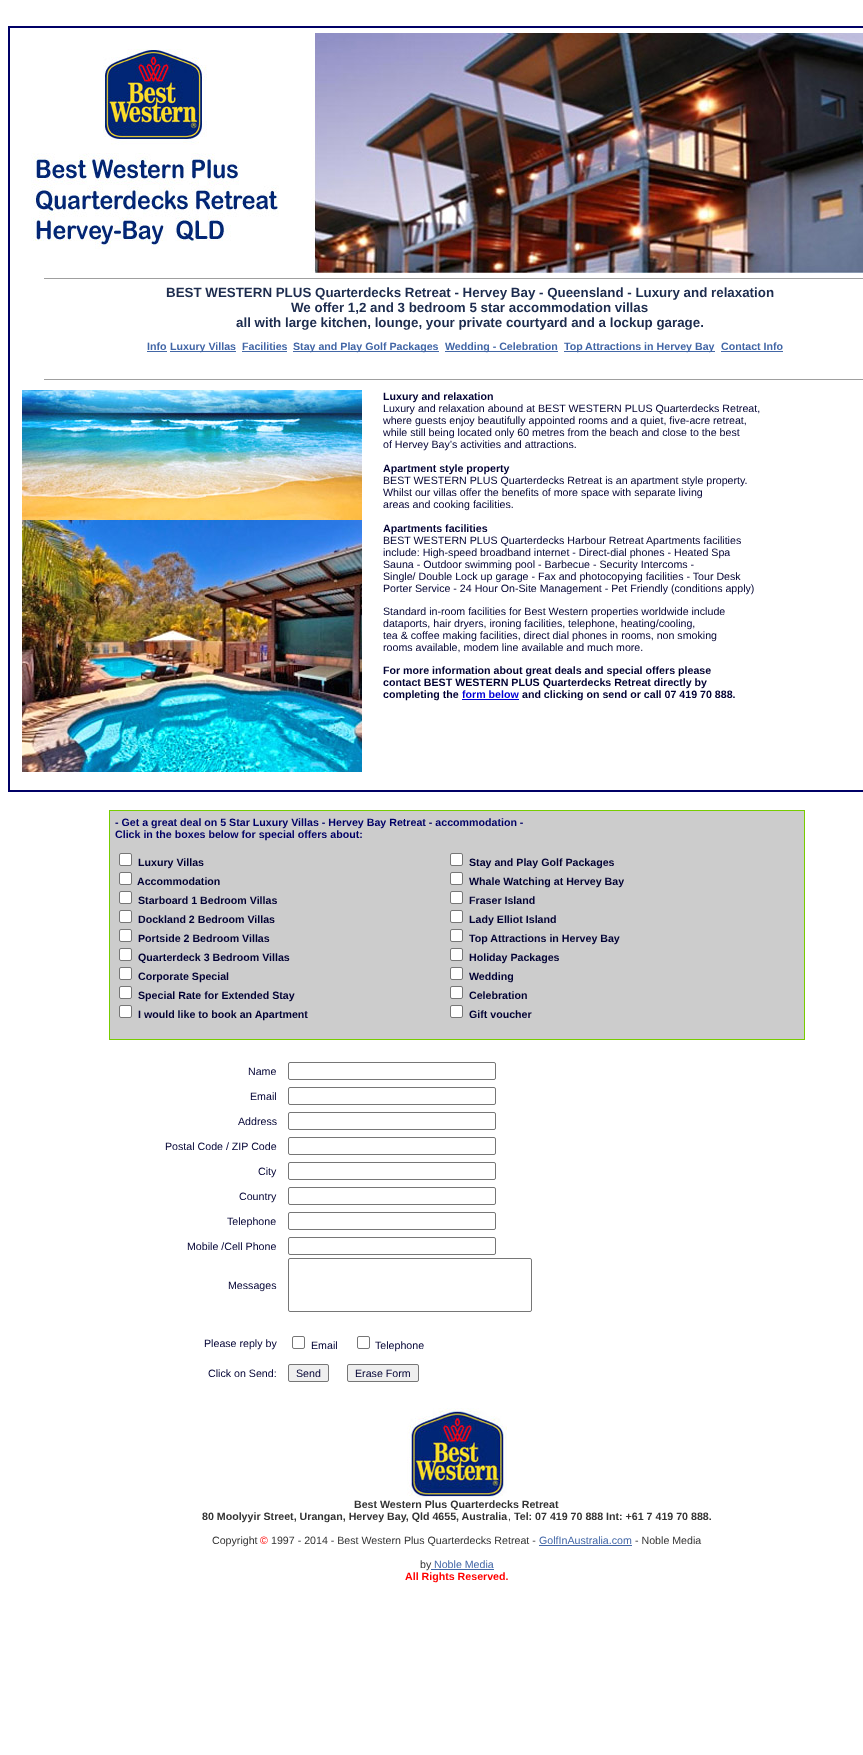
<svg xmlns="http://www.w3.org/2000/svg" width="863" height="1755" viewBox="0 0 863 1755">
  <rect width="100%" height="100%" fill="rgb(255,255,255)"/>
  <rect x="8.5" y="26.5" width="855" height="765" fill="none" stroke="rgb(0,0,102)"/>
  <rect x="9.5" y="27.5" width="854" height="763" fill="none" stroke="rgb(0,0,102)"/>
  <image x="31" y="33" width="832" height="240" href="pic1.png"/>
  <rect x="44" y="278" width="819" height="1" fill="rgb(159,159,159)"/>
  <g font-family="Liberation Sans" font-size="13.35" font-weight="bold" fill="rgb(29,44,78)">
    <text x="166" y="297">BEST WESTERN PLUS Quarterdecks Retreat - Hervey Bay - Queensland - Luxury and relaxation</text>
    <text x="291" y="312">We offer 1,2 and 3 bedroom 5 star accommodation villas</text>
    <text x="236" y="327">all with large kitchen, lounge, your private courtyard and a lockup garage.</text>
  </g>
  <text x="147" y="350" font-family="Liberation Sans" font-size="10.65" font-weight="bold" fill="rgb(66,102,166)">Info</text>
  <rect x="147" y="351" width="20" height="1" fill="rgb(66,102,166)"/>
  <rect x="170" y="351" width="66" height="1" fill="rgb(66,102,166)"/>
  <g font-family="Liberation Sans" font-size="10.65" font-weight="bold" fill="rgb(66,102,166)">
    <text x="170" y="350">Luxury Villas</text>
    <text x="242" y="350">Facilities</text>
  </g>
  <rect x="242" y="351" width="45" height="1" fill="rgb(66,102,166)"/>
  <rect x="293" y="351" width="146" height="1" fill="rgb(66,102,166)"/>
  <text x="293" y="350" font-family="Liberation Sans" font-size="10.65" font-weight="bold" fill="rgb(66,102,166)">Stay and Play Golf Packages</text>
  <rect x="445" y="351" width="113" height="1" fill="rgb(66,102,166)"/>
  <text x="445" y="350" font-family="Liberation Sans" font-size="10.65" font-weight="bold" fill="rgb(66,102,166)">Wedding - Celebration</text>
  <rect x="564" y="351" width="151" height="1" fill="rgb(66,102,166)"/>
  <g font-family="Liberation Sans" font-size="10.65" font-weight="bold" fill="rgb(66,102,166)">
    <text x="564" y="350">Top</text>
    <text x="585" y="350">Attractions in Hervey Bay</text>
    <text x="721" y="350">Contact Info</text>
  </g>
  <rect x="721" y="351" width="62" height="1" fill="rgb(66,102,166)"/>
  <rect x="44" y="379" width="819" height="1" fill="rgb(159,159,159)"/>
  <image x="22" y="390" width="340" height="130" href="pic2.png"/>
  <image x="22" y="520" width="340" height="252" href="pic3.png"/>
  <text x="383" y="400" font-family="Liberation Sans" font-size="10.65" font-weight="bold" fill="rgb(0,0,51)">Luxury and relaxation</text>
  <g font-family="Liberation Sans" font-size="10.65" fill="rgb(0,0,51)">
    <text>
      <tspan x="383" y="412">Luxury and relaxation abound at BEST WESTERN PLUS Quarterdecks Retreat,</tspan>
      <tspan x="383" y="424">where guests enjoy beautifully appointed rooms and a quiet, five-acre retreat,</tspan>
      <tspan x="383" y="436">while still being located only 60 metres from the beach and close to the best</tspan>
      <tspan x="383" y="448">of Hervey Bay’s activities and attractions.</tspan>
    </text>
  </g>
  <text x="383" y="472" font-family="Liberation Sans" font-size="10.65" font-weight="bold" fill="rgb(0,0,51)">Apartment style property</text>
  <g font-family="Liberation Sans" font-size="10.65" fill="rgb(0,0,51)">
    <text>
      <tspan x="383" y="484">BEST WESTERN PLUS Quarterdecks Retreat is an apartment style property.</tspan>
      <tspan x="383" y="496">Whilst our villas offer the benefits of more space with separate living</tspan>
      <tspan x="383" y="508">areas and cooking facilities.</tspan>
    </text>
  </g>
  <text x="383" y="532" font-family="Liberation Sans" font-size="10.65" font-weight="bold" fill="rgb(0,0,51)">Apartments facilities</text>
  <g font-family="Liberation Sans" font-size="10.65" fill="rgb(0,0,51)">
    <text x="383" y="544">BEST WESTERN PLUS Quarterdecks Harbour Retreat</text>
    <text x="646" y="544">Apartments facilities</text>
    <text>
      <tspan x="383" y="556">include: High-speed broadband internet - Direct-dial phones - Heated Spa</tspan>
      <tspan x="383" y="568">Sauna - Outdoor swimming pool - Barbecue - Security Intercoms -</tspan>
      <tspan x="383" y="580">Single/ Double Lock up garage - Fax and photocopying facilities - Tour Desk</tspan>
      <tspan x="383" y="592">Porter Service - 24 Hour On-Site Management - Pet Friendly (conditions apply)</tspan>
    </text>
    <text>
      <tspan x="383" y="615">Standard in-room facilities for Best Western properties worldwide include</tspan>
      <tspan x="383" y="627">dataports, hair dryers, ironing facilities, telephone, heating/cooling,</tspan>
      <tspan x="383" y="639">tea &amp; coffee making facilities, direct dial phones in rooms, non smoking</tspan>
      <tspan x="383" y="651">rooms available, modem line available and much more.</tspan>
    </text>
  </g>
  <g font-family="Liberation Sans" font-size="10.65" font-weight="bold" fill="rgb(0,0,51)">
    <text>
      <tspan x="383" y="674">For more information about great deals and special offers please</tspan>
      <tspan x="383" y="686">contact BEST WESTERN PLUS Quarterdecks Retreat directly by</tspan>
      <tspan x="383" y="698">completing the</tspan>
    </text>
  </g>
  <text x="462" y="698" font-family="Liberation Sans" font-size="10.65" font-weight="bold" fill="rgb(0,0,215)">form below</text>
  <rect x="462" y="699" width="57" height="1" fill="rgb(0,0,215)"/>
  <text x="522" y="698" font-family="Liberation Sans" font-size="10.65" font-weight="bold" fill="rgb(0,0,51)">and clicking on send or call 07 419 70 888.</text>
  <rect x="109.5" y="810.5" width="695" height="229" fill="rgb(204,204,204)" stroke="rgb(119,204,0)"/>
  <g font-family="Liberation Sans" font-size="10.65" font-weight="bold" fill="rgb(0,0,102)">
    <text>
      <tspan x="115" y="826">- Get a great deal on 5 Star Luxury Villas - Hervey Bay Retreat - accommodation -</tspan>
      <tspan x="115" y="838">Click in the boxes below for special offers about:</tspan>
    </text>
  </g>
  <rect x="119.5" y="853.5" width="12" height="12" rx="1.5" fill="rgb(255,255,255)" stroke="rgb(118,118,118)"/>
  <text x="138" y="866" font-family="Liberation Sans" font-size="10.65" font-weight="bold" fill="rgb(0,0,51)">Luxury Villas</text>
  <rect x="119.5" y="872.5" width="12" height="12" rx="1.5" fill="rgb(255,255,255)" stroke="rgb(118,118,118)"/>
  <text x="137" y="885" font-family="Liberation Sans" font-size="10.65" font-weight="bold" fill="rgb(0,0,51)">Accommodation</text>
  <rect x="119.5" y="891.5" width="12" height="12" rx="1.5" fill="rgb(255,255,255)" stroke="rgb(118,118,118)"/>
  <text x="138" y="904" font-family="Liberation Sans" font-size="10.65" font-weight="bold" fill="rgb(0,0,51)">Starboard 1 Bedroom Villas</text>
  <rect x="119.5" y="910.5" width="12" height="12" rx="1.5" fill="rgb(255,255,255)" stroke="rgb(118,118,118)"/>
  <text x="138" y="923" font-family="Liberation Sans" font-size="10.65" font-weight="bold" fill="rgb(0,0,51)">Dockland 2 Bedroom Villas</text>
  <rect x="119.5" y="929.5" width="12" height="12" rx="1.5" fill="rgb(255,255,255)" stroke="rgb(118,118,118)"/>
  <text x="138" y="942" font-family="Liberation Sans" font-size="10.65" font-weight="bold" fill="rgb(0,0,51)">Portside 2 Bedroom Villas</text>
  <rect x="119.5" y="948.5" width="12" height="12" rx="1.5" fill="rgb(255,255,255)" stroke="rgb(118,118,118)"/>
  <text x="138" y="961" font-family="Liberation Sans" font-size="10.65" font-weight="bold" fill="rgb(0,0,51)">Quarterdeck 3 Bedroom Villas</text>
  <rect x="119.5" y="967.5" width="12" height="12" rx="1.5" fill="rgb(255,255,255)" stroke="rgb(118,118,118)"/>
  <text x="138" y="980" font-family="Liberation Sans" font-size="10.65" font-weight="bold" fill="rgb(0,0,51)">Corporate Special</text>
  <rect x="119.5" y="986.5" width="12" height="12" rx="1.5" fill="rgb(255,255,255)" stroke="rgb(118,118,118)"/>
  <text x="138" y="999" font-family="Liberation Sans" font-size="10.65" font-weight="bold" fill="rgb(0,0,51)">Special Rate for Extended Stay</text>
  <rect x="119.5" y="1005.5" width="12" height="12" rx="1.5" fill="rgb(255,255,255)" stroke="rgb(118,118,118)"/>
  <text x="138" y="1018" font-family="Liberation Sans" font-size="10.65" font-weight="bold" fill="rgb(0,0,51)">I would like to book an Apartment</text>
  <rect x="450.5" y="853.5" width="12" height="12" rx="1.5" fill="rgb(255,255,255)" stroke="rgb(118,118,118)"/>
  <text x="469" y="866" font-family="Liberation Sans" font-size="10.65" font-weight="bold" fill="rgb(0,0,51)">Stay and Play Golf Packages</text>
  <rect x="450.5" y="872.5" width="12" height="12" rx="1.5" fill="rgb(255,255,255)" stroke="rgb(118,118,118)"/>
  <text x="469" y="885" font-family="Liberation Sans" font-size="10.65" font-weight="bold" fill="rgb(0,0,51)">Whale Watching at Hervey Bay</text>
  <rect x="450.5" y="891.5" width="12" height="12" rx="1.5" fill="rgb(255,255,255)" stroke="rgb(118,118,118)"/>
  <text x="469" y="904" font-family="Liberation Sans" font-size="10.65" font-weight="bold" fill="rgb(0,0,51)">Fraser Island</text>
  <rect x="450.5" y="910.5" width="12" height="12" rx="1.5" fill="rgb(255,255,255)" stroke="rgb(118,118,118)"/>
  <text x="469" y="923" font-family="Liberation Sans" font-size="10.65" font-weight="bold" fill="rgb(0,0,51)">Lady Elliot Island</text>
  <rect x="450.5" y="929.5" width="12" height="12" rx="1.5" fill="rgb(255,255,255)" stroke="rgb(118,118,118)"/>
  <text x="469" y="942" font-family="Liberation Sans" font-size="10.65" font-weight="bold" fill="rgb(0,0,51)">Top Attractions in Hervey Bay</text>
  <rect x="450.5" y="948.5" width="12" height="12" rx="1.5" fill="rgb(255,255,255)" stroke="rgb(118,118,118)"/>
  <text x="469" y="961" font-family="Liberation Sans" font-size="10.65" font-weight="bold" fill="rgb(0,0,51)">Holiday Packages</text>
  <rect x="450.5" y="967.5" width="12" height="12" rx="1.5" fill="rgb(255,255,255)" stroke="rgb(118,118,118)"/>
  <text x="469" y="980" font-family="Liberation Sans" font-size="10.65" font-weight="bold" fill="rgb(0,0,51)">Wedding</text>
  <rect x="450.5" y="986.5" width="12" height="12" rx="1.5" fill="rgb(255,255,255)" stroke="rgb(118,118,118)"/>
  <text x="469" y="999" font-family="Liberation Sans" font-size="10.65" font-weight="bold" fill="rgb(0,0,51)">Celebration</text>
  <rect x="450.5" y="1005.5" width="12" height="12" rx="1.5" fill="rgb(255,255,255)" stroke="rgb(118,118,118)"/>
  <text x="469" y="1018" font-family="Liberation Sans" font-size="10.65" font-weight="bold" fill="rgb(0,0,51)">Gift voucher</text>
  <text x="248" y="1075" font-family="Liberation Sans" font-size="10.65" fill="rgb(0,0,51)">Name</text>
  <rect x="288.5" y="1062.5" width="207" height="17" rx="1.5" fill="none" stroke="rgb(118,118,118)"/>
  <text x="250" y="1100" font-family="Liberation Sans" font-size="10.65" fill="rgb(0,0,51)">Email</text>
  <rect x="288.5" y="1087.5" width="207" height="17" rx="1.5" fill="none" stroke="rgb(118,118,118)"/>
  <text x="238" y="1125" font-family="Liberation Sans" font-size="10.65" fill="rgb(0,0,51)">Address</text>
  <rect x="288.5" y="1112.5" width="207" height="17" rx="1.5" fill="none" stroke="rgb(118,118,118)"/>
  <text x="165" y="1150" font-family="Liberation Sans" font-size="10.65" fill="rgb(0,0,51)">Postal Code / ZIP Code</text>
  <rect x="288.5" y="1137.5" width="207" height="17" rx="1.5" fill="none" stroke="rgb(118,118,118)"/>
  <text x="258" y="1175" font-family="Liberation Sans" font-size="10.65" fill="rgb(0,0,51)">City</text>
  <rect x="288.5" y="1162.5" width="207" height="17" rx="1.5" fill="none" stroke="rgb(118,118,118)"/>
  <text x="239" y="1200" font-family="Liberation Sans" font-size="10.65" fill="rgb(0,0,51)">Country</text>
  <rect x="288.5" y="1187.5" width="207" height="17" rx="1.5" fill="none" stroke="rgb(118,118,118)"/>
  <text x="227" y="1225" font-family="Liberation Sans" font-size="10.65" fill="rgb(0,0,51)">Telephone</text>
  <rect x="288.5" y="1212.5" width="207" height="17" rx="1.5" fill="none" stroke="rgb(118,118,118)"/>
  <text x="187" y="1250" font-family="Liberation Sans" font-size="10.65" fill="rgb(0,0,51)">Mobile /Cell Phone</text>
  <rect x="288.5" y="1237.5" width="207" height="17" rx="1.5" fill="none" stroke="rgb(118,118,118)"/>
  <text x="228" y="1289" font-family="Liberation Sans" font-size="10.65" fill="rgb(0,0,51)">Messages</text>
  <rect x="288.5" y="1258.5" width="243" height="53" rx="1.5" fill="none" stroke="rgb(118,118,118)"/>
  <text x="204" y="1347" font-family="Liberation Sans" font-size="10.65" fill="rgb(0,0,51)">Please reply by</text>
  <rect x="292.5" y="1336.5" width="12" height="12" rx="1.5" fill="none" stroke="rgb(118,118,118)"/>
  <text x="311" y="1349" font-family="Liberation Sans" font-size="10.65" fill="rgb(0,0,51)">Email</text>
  <rect x="357.5" y="1336.5" width="12" height="12" rx="1.5" fill="none" stroke="rgb(118,118,118)"/>
  <g font-family="Liberation Sans" font-size="10.65" fill="rgb(0,0,51)">
    <text x="375" y="1349">Telephone</text>
    <text x="208" y="1377">Click on Send:</text>
  </g>
  <rect x="288.5" y="1364.5" width="40" height="17" rx="1.5" fill="rgb(239,239,239)" stroke="rgb(118,118,118)"/>
  <text x="296" y="1377" font-family="Liberation Sans" font-size="10.65" fill="rgb(0,0,51)">Send</text>
  <rect x="347.5" y="1364.5" width="71" height="17" rx="1.5" fill="rgb(239,239,239)" stroke="rgb(118,118,118)"/>
  <text x="355" y="1377" font-family="Liberation Sans" font-size="10.65" fill="rgb(0,0,51)">Erase Form</text>
  <image x="407" y="1408" width="100" height="90" href="pic4.png"/>
  <g font-family="Liberation Sans" font-size="10.65" font-weight="bold" fill="rgb(51,51,51)">
    <text x="354" y="1508">Best Western Plus Quarterdecks Retreat</text>
    <text x="202" y="1520">80 Moolyyir Street, Urangan, Hervey Bay, Qld 4655, Australia</text>
  </g>
  <text x="508" y="1520" font-family="Liberation Sans" font-size="10.65" fill="rgb(51,51,51)">,</text>
  <text x="514" y="1520" font-family="Liberation Sans" font-size="10.65" font-weight="bold" fill="rgb(51,51,51)">Tel: 07 419 70 888 Int: +61 7 419 70 888.</text>
  <text x="212" y="1544" font-family="Liberation Sans" font-size="10.65" fill="rgb(51,51,51)">Copyright</text>
  <text x="260" y="1544" font-family="Liberation Sans" font-size="10.65" fill="rgb(255,0,0)">©</text>
  <text x="271" y="1544" font-family="Liberation Sans" font-size="10.65" fill="rgb(51,51,51)">1997 - 2014 - Best Western Plus Quarterdecks Retreat -</text>
  <text x="539" y="1544" font-family="Liberation Sans" font-size="10.65" fill="rgb(66,102,166)">GolfInAustralia.com</text>
  <rect x="539" y="1545" width="93" height="1" fill="rgb(66,102,166)"/>
  <g font-family="Liberation Sans" font-size="10.65" fill="rgb(51,51,51)">
    <text x="635" y="1544">- Noble Media</text>
    <text x="420" y="1568">by</text>
  </g>
  <text x="434" y="1568" font-family="Liberation Sans" font-size="10.65" fill="rgb(66,102,166)">Noble Media</text>
  <rect x="431" y="1569" width="63" height="1" fill="rgb(66,102,166)"/>
  <text x="405" y="1580" font-family="Liberation Sans" font-size="10.65" font-weight="bold" fill="rgb(255,0,0)">All Rights Reserved.</text>
</svg>
